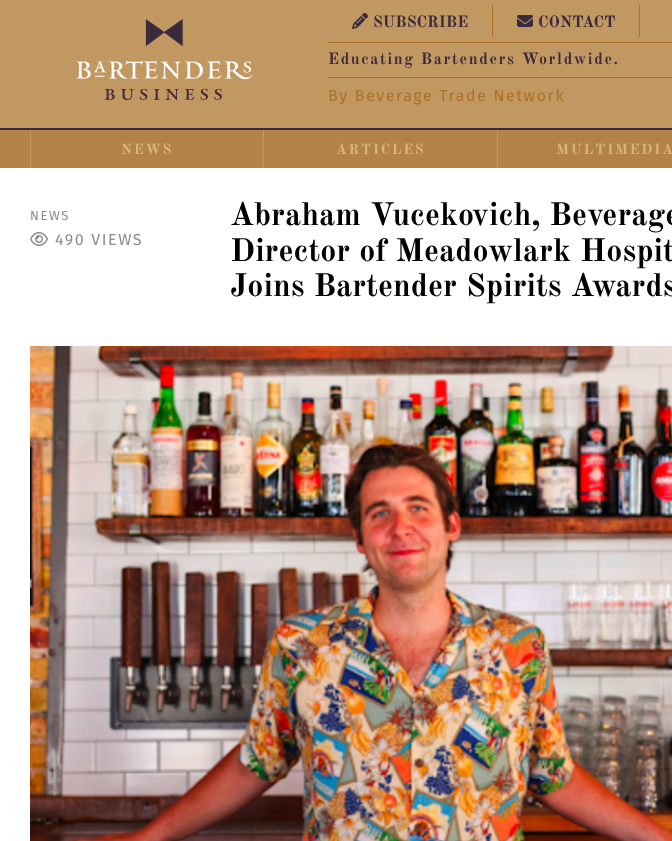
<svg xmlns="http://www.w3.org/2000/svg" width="672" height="841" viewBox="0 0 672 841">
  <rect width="100%" height="100%" fill="rgb(255,255,255)"/>
  <rect x="0" y="0" width="672" height="128" fill="rgb(194,152,98)"/>
  <image x="76" y="19" width="177" height="81" href="pic1.png"/>
  <rect x="492" y="5" width="1" height="32" fill="rgb(174,112,38)"/>
  <image x="352" y="13" width="16" height="16" href="pic2.png"/>
  <text x="373" y="27" font-family="Old Standard TT" font-size="16" font-weight="bold" fill="rgb(58,42,59)">SUBSCRIBE</text>
  <rect x="639" y="5" width="1" height="32" fill="rgb(174,112,38)"/>
  <image x="517" y="15" width="16" height="12" href="pic3.png"/>
  <text x="538" y="27" font-family="Old Standard TT" font-size="16" font-weight="bold" fill="rgb(58,42,59)">CONTACT</text>
  <rect x="328" y="42" width="344" height="1" fill="rgb(174,112,38)"/>
  <rect x="328" y="77" width="344" height="1" fill="rgb(174,112,38)"/>
  <text x="328" y="64" font-family="Old Standard TT" font-size="16" font-weight="bold" letter-spacing="1.6" fill="rgb(58,42,59)">Educating Bartenders Worldwide.</text>
  <text x="328" y="101" font-family="Fira Sans" font-size="16" letter-spacing="1.6" fill="rgb(174,112,38)">By Beverage Trade Network</text>
  <rect x="0" y="130" width="672" height="38" fill="rgb(179,130,71)"/>
  <rect x="0" y="128" width="672" height="2" fill="rgb(58,42,59)"/>
  <rect x="263" y="130" width="1" height="38" fill="rgb(194,152,98)"/>
  <rect x="30" y="130" width="1" height="38" fill="rgb(194,152,98)"/>
  <text x="121" y="154" font-family="Old Standard TT" font-size="14.5" font-weight="bold" letter-spacing="1.6" fill="rgb(220,178,125)">NEWS</text>
  <rect x="497" y="130" width="1" height="38" fill="rgb(194,152,98)"/>
  <g font-family="Old Standard TT" font-size="14.5" font-weight="bold" letter-spacing="1.6" fill="rgb(220,178,125)">
    <text x="336" y="154">ARTICLES</text>
    <text x="556" y="154">MULTIMEDIA</text>
  </g>
  <text x="30" y="220" font-family="Fira Sans" font-size="13" letter-spacing="1.6" fill="rgb(140,140,140)">NEWS</text>
  <image x="30" y="232" width="18" height="14" href="pic4.png"/>
  <text x="55" y="245" font-family="Fira Sans" font-size="16" letter-spacing="1.6" fill="rgb(140,140,140)">490 VIEWS</text>
  <g font-family="Old Standard TT" font-size="32" font-weight="bold" fill="rgb(0,0,0)">
    <text>
      <tspan x="230" y="225">Abraham Vucekovich, Beverage</tspan>
      <tspan x="230" y="261">Director of Meadowlark Hospit</tspan>
      <tspan x="230" y="296">Joins Bartender Spirits Awards</tspan>
    </text>
  </g>
  <image x="30" y="346" width="642" height="495" href="pic5.png"/>
</svg>
